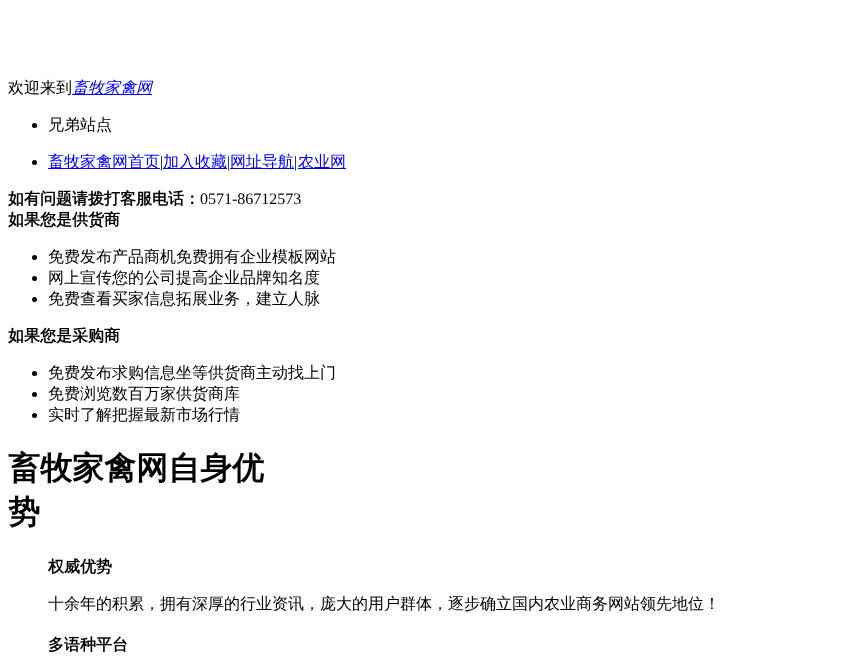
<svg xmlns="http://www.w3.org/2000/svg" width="862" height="656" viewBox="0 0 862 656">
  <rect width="100%" height="100%" fill="rgb(255,255,255)"/>
  <text x="8" y="93" font-family="WenQuanYi Zen Hei" font-size="16" font-weight="500" fill="rgb(0,0,0)">欢迎来到</text>
  <rect x="72" y="94" width="80" height="1" fill="rgb(0,0,238)"/>
  <text x="72" y="93" font-family="WenQuanYi Zen Hei" font-size="16" font-weight="500" font-style="italic" fill="rgb(0,0,238)">畜牧家禽网</text>
  <circle cx="34.5" cy="125.5" r="2.5" fill="rgb(0,0,0)"/>
  <text x="48" y="130" font-family="WenQuanYi Zen Hei" font-size="16" font-weight="500" fill="rgb(0,0,0)">兄弟站点</text>
  <circle cx="34.5" cy="162.5" r="2.5" fill="rgb(0,0,0)"/>
  <rect x="48" y="168" width="112" height="1" fill="rgb(0,0,238)"/>
  <text x="48" y="167" font-family="WenQuanYi Zen Hei" font-size="16" font-weight="500" fill="rgb(0,0,238)">畜牧家禽网首页</text>
  <text x="160" y="167" font-family="Liberation Serif" font-size="16" fill="rgb(0,0,0)">|</text>
  <rect x="163" y="168" width="64" height="1" fill="rgb(0,0,238)"/>
  <text x="163" y="167" font-family="WenQuanYi Zen Hei" font-size="16" font-weight="500" fill="rgb(0,0,238)">加入收藏</text>
  <text x="227" y="167" font-family="Liberation Serif" font-size="16" fill="rgb(0,0,0)">|</text>
  <rect x="230" y="168" width="64" height="1" fill="rgb(0,0,238)"/>
  <text x="230" y="167" font-family="WenQuanYi Zen Hei" font-size="16" font-weight="500" fill="rgb(0,0,238)">网址导航</text>
  <text x="294" y="167" font-family="Liberation Serif" font-size="16" fill="rgb(0,0,0)">|</text>
  <rect x="298" y="168" width="48" height="1" fill="rgb(0,0,238)"/>
  <text x="298" y="167" font-family="WenQuanYi Zen Hei" font-size="16" font-weight="500" fill="rgb(0,0,238)">农业网</text>
  <text x="8" y="204" font-family="WenQuanYi Zen Hei" font-size="16" font-weight="bold" fill="rgb(0,0,0)">如有问题请拨打客服电话：</text>
  <text x="200" y="204" font-family="Liberation Serif" font-size="16" fill="rgb(0,0,0)">0571-86712573</text>
  <text x="8" y="225" font-family="WenQuanYi Zen Hei" font-size="16" font-weight="bold" fill="rgb(0,0,0)">如果您是供货商</text>
  <circle cx="34.5" cy="257.5" r="2.5" fill="rgb(0,0,0)"/>
  <text x="48" y="262" font-family="WenQuanYi Zen Hei" font-size="16" font-weight="500" fill="rgb(0,0,0)">免费发布产品商机免费拥有企业模板网站</text>
  <circle cx="34.5" cy="278.5" r="2.5" fill="rgb(0,0,0)"/>
  <text x="48" y="283" font-family="WenQuanYi Zen Hei" font-size="16" font-weight="500" fill="rgb(0,0,0)">网上宣传您的公司提高企业品牌知名度</text>
  <circle cx="34.5" cy="299.5" r="2.5" fill="rgb(0,0,0)"/>
  <text x="48" y="304" font-family="WenQuanYi Zen Hei" font-size="16" font-weight="500" fill="rgb(0,0,0)">免费查看买家信息拓展业务，建立人脉</text>
  <text x="8" y="341" font-family="WenQuanYi Zen Hei" font-size="16" font-weight="bold" fill="rgb(0,0,0)">如果您是采购商</text>
  <circle cx="34.5" cy="373.5" r="2.5" fill="rgb(0,0,0)"/>
  <text x="48" y="378" font-family="WenQuanYi Zen Hei" font-size="16" font-weight="500" fill="rgb(0,0,0)">免费发布求购信息坐等供货商主动找上门</text>
  <circle cx="34.5" cy="394.5" r="2.5" fill="rgb(0,0,0)"/>
  <text x="48" y="399" font-family="WenQuanYi Zen Hei" font-size="16" font-weight="500" fill="rgb(0,0,0)">免费浏览数百万家供货商库</text>
  <circle cx="34.5" cy="415.5" r="2.5" fill="rgb(0,0,0)"/>
  <text x="48" y="420" font-family="WenQuanYi Zen Hei" font-size="16" font-weight="500" fill="rgb(0,0,0)">实时了解把握最新市场行情</text>
  <g font-family="WenQuanYi Zen Hei" font-size="32" font-weight="bold" fill="rgb(0,0,0)">
    <text>
      <tspan x="8" y="479">畜牧家禽网自身优</tspan>
      <tspan x="8" y="523">势</tspan>
    </text>
  </g>
  <text x="48" y="572" font-family="WenQuanYi Zen Hei" font-size="16" font-weight="bold" fill="rgb(0,0,0)">权威优势</text>
  <text x="48" y="609" font-family="WenQuanYi Zen Hei" font-size="16" font-weight="500" fill="rgb(0,0,0)">十余年的积累，拥有深厚的行业资讯，庞大的用户群体，逐步确立国内农业商务网站领先地位！</text>
  <text x="48" y="650" font-family="WenQuanYi Zen Hei" font-size="16" font-weight="bold" fill="rgb(0,0,0)">多语种平台</text>
</svg>
